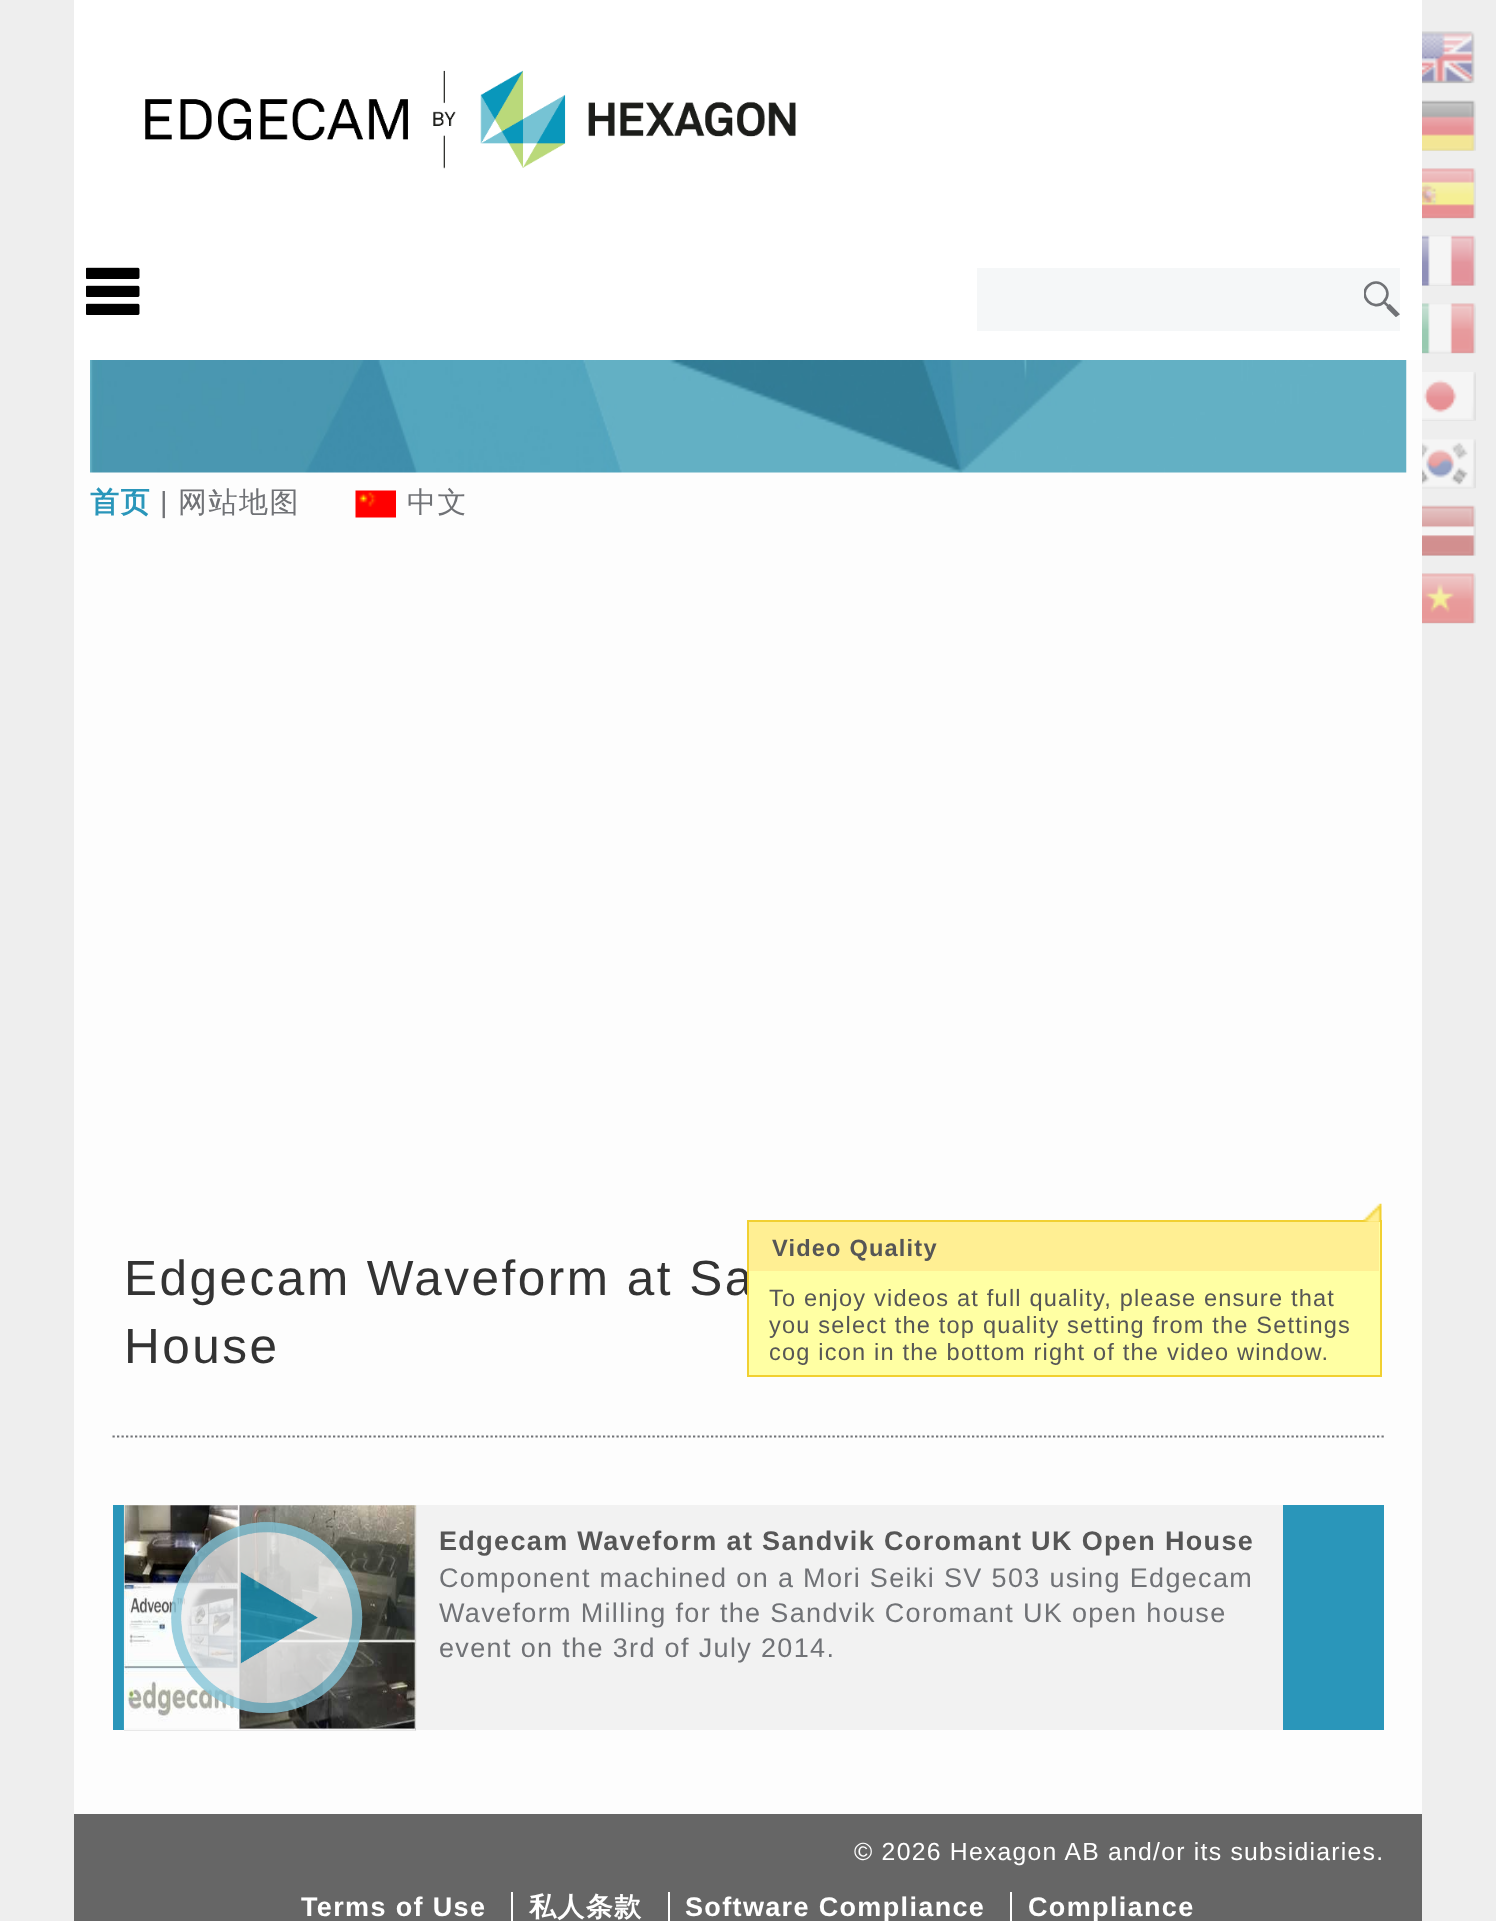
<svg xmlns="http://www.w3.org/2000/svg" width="1496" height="1921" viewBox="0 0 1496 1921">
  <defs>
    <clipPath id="clip1"><rect x="1364" y="281" width="36" height="36"/></clipPath>
    <linearGradient id="g1" gradientUnits="userSpaceOnUse" x1="849" y1="1505" x2="849" y2="1730"><stop offset="0.8" stop-color="rgb(242,242,242)" stop-opacity="0"/><stop offset="1" stop-color="rgb(242,242,242)"/></linearGradient>
  </defs>
  <rect width="100%" height="100%" fill="rgb(238,238,238)"/>
  <rect x="74" y="0" width="1348" height="360" fill="rgb(255,255,255)"/>
  <image x="145" y="70" width="651" height="99" href="pic1.png"/>
  <image x="1422" y="31" width="53" height="53" href="pic2.png"/>
  <image x="1422" y="100" width="54" height="51" href="pic3.png"/>
  <image x="1422" y="168" width="54" height="51" href="pic4.png"/>
  <image x="1422" y="235" width="54" height="51" href="pic5.png"/>
  <image x="1422" y="303" width="54" height="51" href="pic6.png"/>
  <image x="1422" y="372" width="54" height="49" href="pic7.png"/>
  <image x="1422" y="439" width="54" height="50" href="pic8.png"/>
  <image x="1422" y="505" width="54" height="51" href="pic9.png"/>
  <image x="1422" y="573" width="54" height="51" href="pic10.png"/>
  <image x="86" y="267" width="54" height="48" href="pic11.png"/>
  <rect x="977" y="268" width="423" height="63" fill="rgb(245,247,248)"/>
  <g clip-path="url(#clip1)">
    <path d="M1384 301.5C1394.5 291 1378.5 275.5 1368 286C1357.5 296 1373.5 312 1384 302L1396.5 314.5M1389.5 305.5L1398 314L1396 315.5L1388 307.5" fill="none" stroke="rgb(112,114,118)" stroke-width="2.6" stroke-linecap="round"/>
  </g>
  <rect x="74" y="360" width="1348" height="1454" fill="rgb(253,253,253)"/>
  <image x="90" y="360" width="1317" height="113" href="pic12.png"/>
  <text x="90" y="512" font-family="WenQuanYi Zen Hei" font-size="29" font-weight="bold" letter-spacing="1.5" fill="rgb(42,150,186)">首页</text>
  <text x="160" y="512" font-family="Liberation Sans" font-size="29" letter-spacing="1.5" fill="rgb(112,114,118)">|</text>
  <text x="178" y="512" font-family="WenQuanYi Zen Hei" font-size="29" font-weight="500" letter-spacing="1.5" fill="rgb(112,114,118)">网站地图</text>
  <image x="355" y="490" width="41" height="28" href="pic13.png"/>
  <text x="407" y="512" font-family="WenQuanYi Zen Hei" font-size="29" font-weight="500" letter-spacing="1.5" fill="rgb(112,114,118)">中文</text>
  <g font-family="Liberation Sans" font-size="49.5" letter-spacing="2.5" fill="rgb(51,51,51)">
    <text>
      <tspan x="124" y="1295">Edgecam Waveform at Sa</tspan>
      <tspan x="124" y="1363">House</tspan>
    </text>
  </g>
  <path d="M112.5 1436.5H1384" fill="none" stroke="rgb(112,114,118)" stroke-width="2.2" stroke-dasharray="2.25 2.25"/>
  <rect x="124" y="1505" width="1159" height="225" fill="rgb(242,242,242)"/>
  <rect x="1283" y="1505" width="101" height="225" fill="rgb(42,150,186)"/>
  <rect x="113" y="1505" width="11" height="225" fill="rgb(42,150,186)"/>
  <image x="123" y="1505" width="294" height="226" href="pic14.png"/>
  <image x="171" y="1521" width="192" height="193" href="pic15.png"/>
  <rect x="416" y="1698" width="1" height="32" fill="url(#g1)"/>
  <text x="439" y="1550" font-family="Liberation Sans" font-size="27" font-weight="bold" letter-spacing="1.35" fill="rgb(86,86,86)">Edgecam Waveform at Sandvik Coromant UK Open House</text>
  <g font-family="Liberation Sans" font-size="27" letter-spacing="1.35" fill="rgb(112,114,118)">
    <text>
      <tspan x="439" y="1587">Component machined on a Mori Seiki SV 503 using Edgecam</tspan>
      <tspan x="439" y="1622">Waveform Milling for the Sandvik Coromant UK open house</tspan>
      <tspan x="439" y="1657">event on the 3rd of July 2014.</tspan>
    </text>
  </g>
  <rect x="74" y="1814" width="1348" height="107" fill="rgb(102,102,102)"/>
  <text x="854" y="1860" font-family="Liberation Sans" font-size="24.75" letter-spacing="1.25" fill="rgb(255,255,255)">© 2026 Hexagon AB and/or its subsidiaries.</text>
  <text x="301" y="1916" font-family="Liberation Sans" font-size="27" font-weight="bold" letter-spacing="1.35" fill="rgb(255,255,255)">Terms of Use</text>
  <rect x="511" y="1892" width="2" height="29" fill="rgb(255,255,255)"/>
  <text x="529" y="1916" font-family="WenQuanYi Zen Hei" font-size="27" font-weight="bold" letter-spacing="1.35" fill="rgb(255,255,255)">私人条款</text>
  <rect x="668" y="1892" width="2" height="29" fill="rgb(255,255,255)"/>
  <text x="685" y="1916" font-family="Liberation Sans" font-size="27" font-weight="bold" letter-spacing="1.35" fill="rgb(255,255,255)">Software Compliance</text>
  <rect x="1010" y="1892" width="2" height="29" fill="rgb(255,255,255)"/>
  <text x="1028" y="1916" font-family="Liberation Sans" font-size="27" font-weight="bold" letter-spacing="1.35" fill="rgb(255,255,255)">Compliance</text>
  <rect x="748" y="1221" width="633" height="155" fill="rgb(255,255,163)" stroke="rgb(241,208,49)" stroke-width="2"/>
  <image x="1363" y="1203" width="19" height="19" href="pic16.png"/>
  <rect x="749" y="1222" width="630" height="49" fill="rgb(255,239,147)"/>
  <text x="772" y="1256" font-family="Liberation Sans" font-size="23.6" font-weight="bold" letter-spacing="1.18" fill="rgb(86,86,86)">Video Quality</text>
  <g font-family="Liberation Sans" font-size="23.6" letter-spacing="1.18" fill="rgb(86,86,86)">
    <text>
      <tspan x="769" y="1306">To enjoy videos at full quality, please ensure that</tspan>
      <tspan x="769" y="1333">you select the top quality setting from the Settings</tspan>
      <tspan x="769" y="1360">cog icon in the bottom right of the video window.</tspan>
    </text>
  </g>
</svg>
